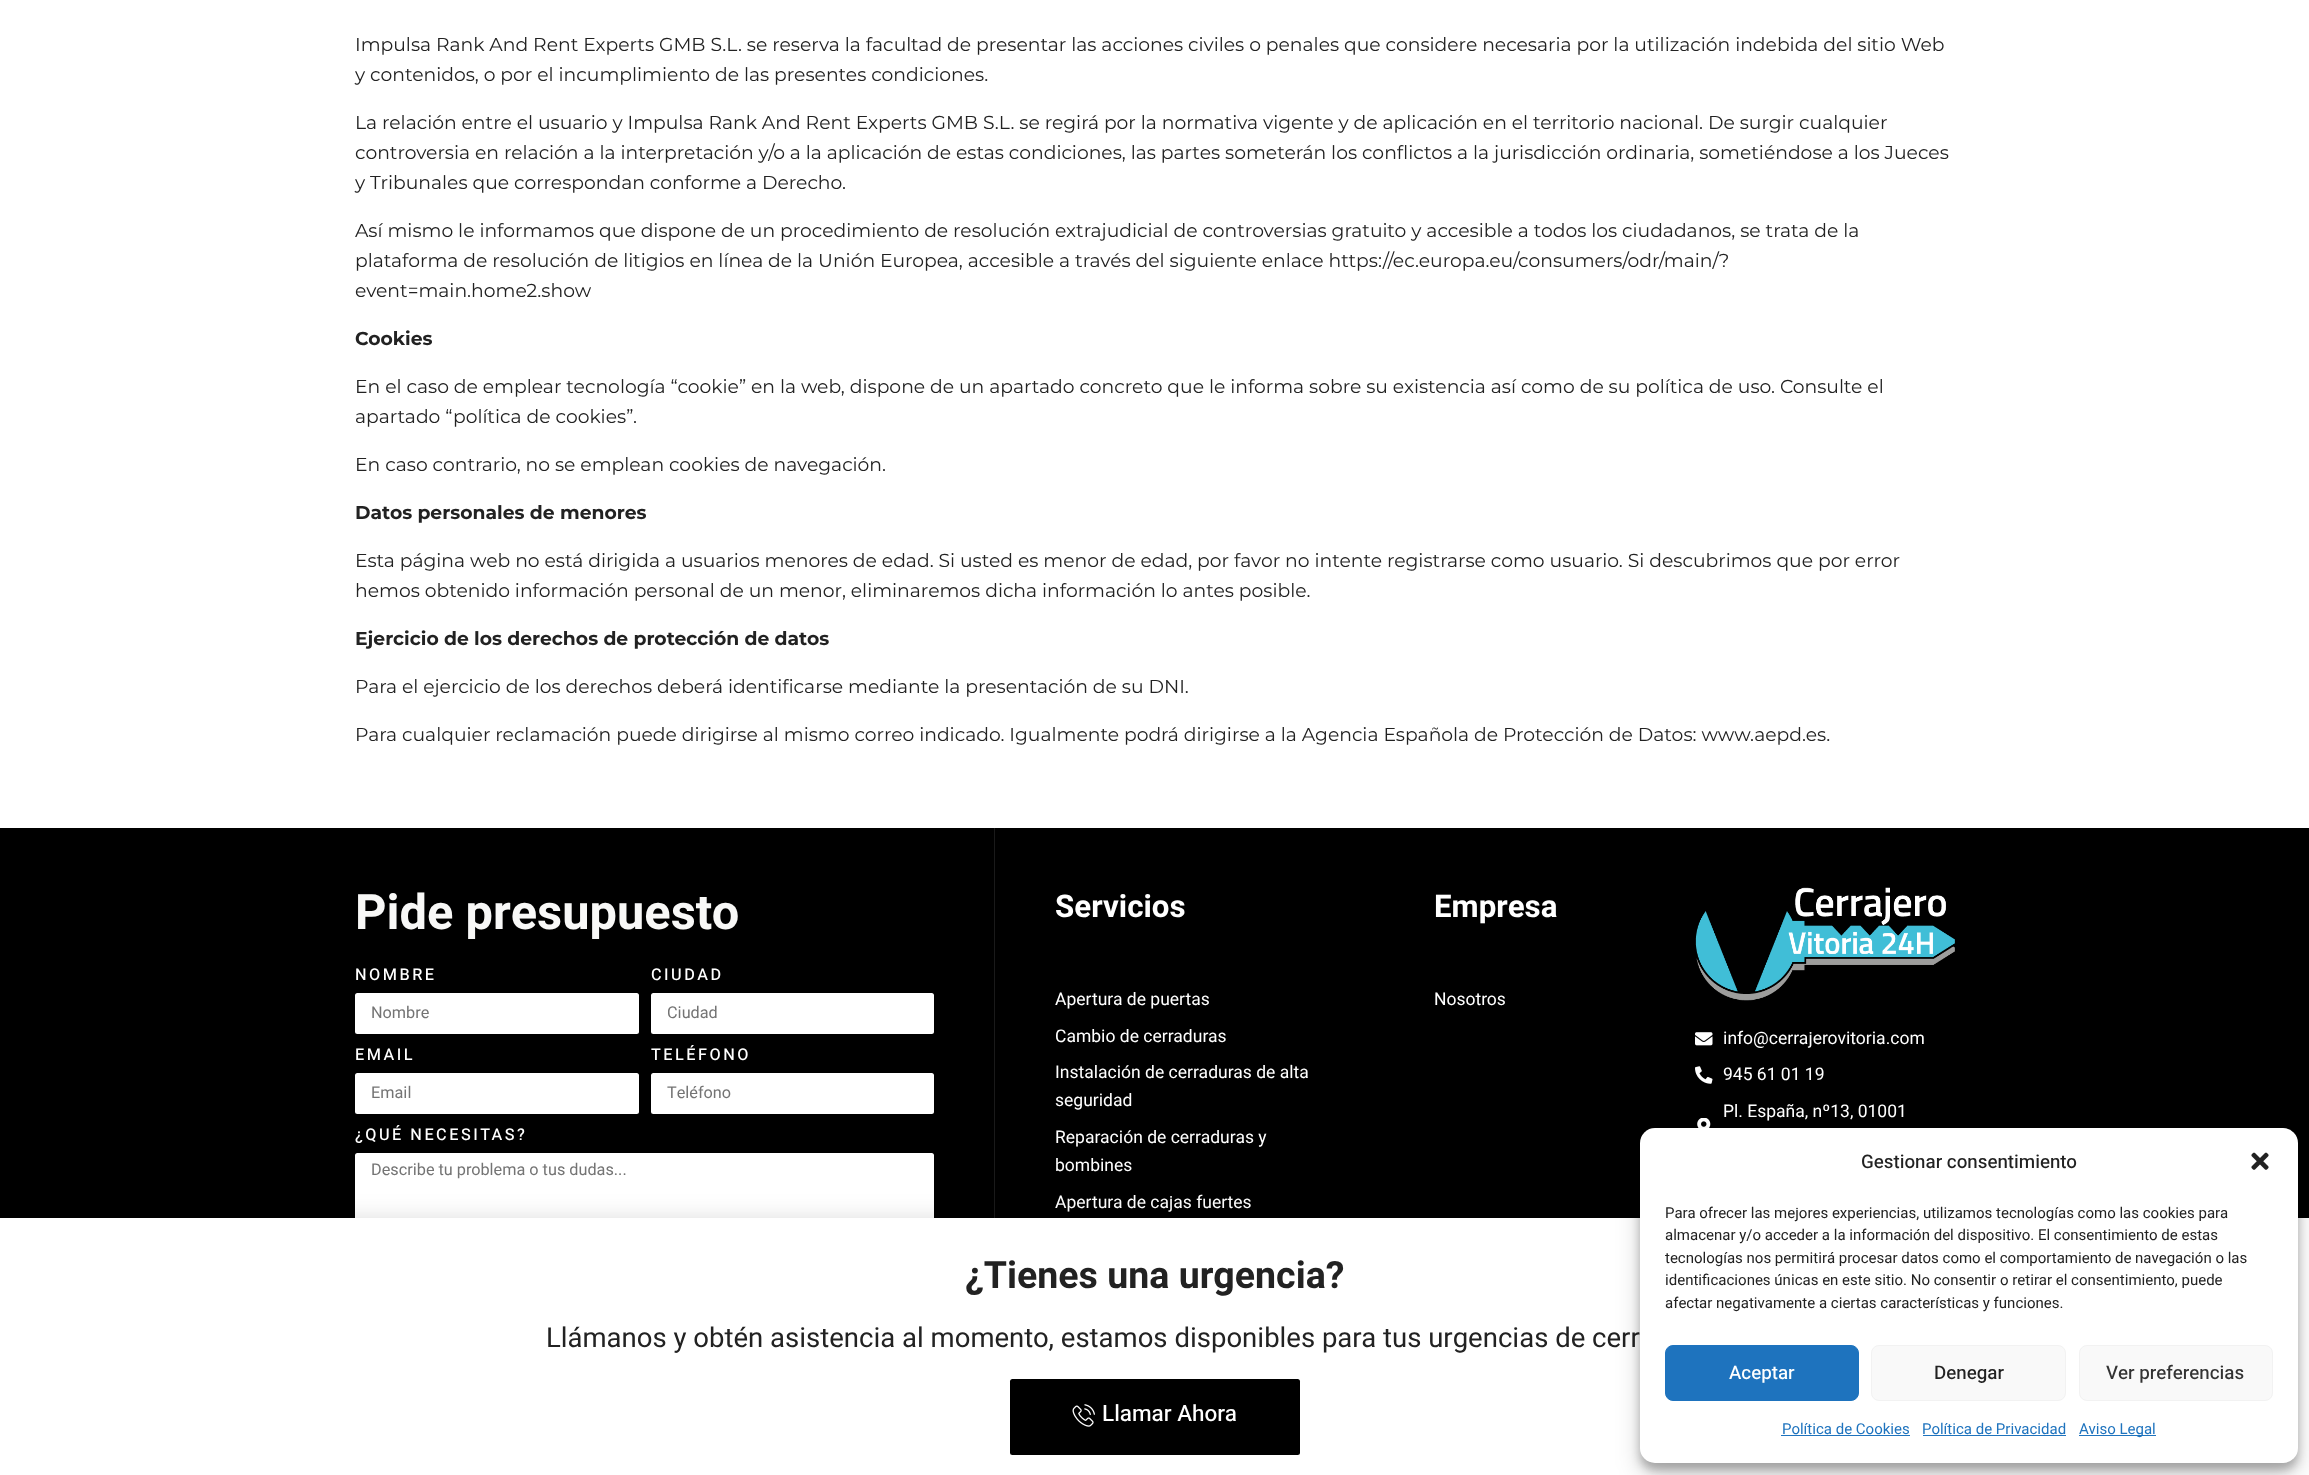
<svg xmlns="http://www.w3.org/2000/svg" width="2309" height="1475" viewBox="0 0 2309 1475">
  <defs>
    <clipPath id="clip1"><rect x="668" y="1001" width="250" height="24"/></clipPath>
  </defs>
  <rect width="100%" height="100%" fill="rgb(255,255,255)"/>
  <g font-family="Montserrat" font-size="18.75" fill="rgb(34,34,34)">
    <text>
      <tspan x="355" y="51">Impulsa Rank And Rent Experts GMB S.L. se reserva la facultad de presentar las acciones civiles o penales que considere necesaria por la utilización indebida del sitio Web</tspan>
      <tspan x="355" y="81">y contenidos, o por el incumplimiento de las presentes condiciones.</tspan>
    </text>
    <text>
      <tspan x="355" y="129">La relación entre el usuario y Impulsa Rank And Rent Experts GMB S.L. se regirá por la normativa vigente y de aplicación en el territorio nacional. De surgir cualquier</tspan>
      <tspan x="355" y="159">controversia en relación a la interpretación y/o a la aplicación de estas condiciones, las partes someterán los conflictos a la jurisdicción ordinaria, sometiéndose a los Jueces</tspan>
      <tspan x="355" y="189">y Tribunales que correspondan conforme a Derecho.</tspan>
    </text>
    <text>
      <tspan x="355" y="237">Así mismo le informamos que dispone de un procedimiento de resolución extrajudicial de controversias gratuito y accesible a todos los ciudadanos, se trata de la</tspan>
      <tspan x="355" y="267">plataforma de resolución de litigios en línea de la Unión Europea, accesible a través del siguiente enlace https://ec.europa.eu/consumers/odr/main/?</tspan>
      <tspan x="355" y="297">event=main.home2.show</tspan>
    </text>
  </g>
  <text x="355" y="345" font-family="Montserrat" font-size="18.75" font-weight="bold" fill="rgb(34,34,34)">Cookies</text>
  <g font-family="Montserrat" font-size="18.75" fill="rgb(34,34,34)">
    <text>
      <tspan x="355" y="393">En el caso de emplear tecnología “cookie” en la web, dispone de un apartado concreto que le informa sobre su existencia así como de su política de uso. Consulte el</tspan>
      <tspan x="355" y="423">apartado “política de cookies”.</tspan>
    </text>
    <text x="355" y="471">En caso contrario, no se emplean cookies de navegación.</text>
  </g>
  <text x="355" y="519" font-family="Montserrat" font-size="18.75" font-weight="bold" fill="rgb(34,34,34)">Datos personales de menores</text>
  <g font-family="Montserrat" font-size="18.75" fill="rgb(34,34,34)">
    <text>
      <tspan x="355" y="567">Esta página web no está dirigida a usuarios menores de edad. Si usted es menor de edad, por favor no intente registrarse como usuario. Si descubrimos que por error</tspan>
      <tspan x="355" y="597">hemos obtenido información personal de un menor, eliminaremos dicha información lo antes posible.</tspan>
    </text>
  </g>
  <text x="355" y="645" font-family="Montserrat" font-size="18.75" font-weight="bold" fill="rgb(34,34,34)">Ejercicio de los derechos de protección de datos</text>
  <g font-family="Montserrat" font-size="18.75" fill="rgb(34,34,34)">
    <text x="355" y="693">Para el ejercicio de los derechos deberá identificarse mediante la presentación de su DNI.</text>
    <text x="355" y="741">Para cualquier reclamación puede dirigirse al mismo correo indicado. Igualmente podrá dirigirse a la Agencia Española de Protección de Datos: www.aepd.es.</text>
  </g>
  <rect x="0" y="828" width="2309" height="390" fill="rgb(0,0,0)"/>
  <rect x="994" y="828" width="1" height="390" fill="rgb(26,26,26)"/>
  <text x="355" y="929" font-family="Heebo" font-size="48.75" font-weight="bold" fill="rgb(248,248,247)">Pide presupuesto</text>
  <text x="355" y="980" font-family="Heebo" font-size="16.25" font-weight="500" letter-spacing="2.5" fill="rgb(255,255,255)">NOMBRE</text>
  <rect x="355" y="993" width="284" height="41" rx="2.5" fill="rgb(255,255,255)"/>
  <rect x="355.5" y="993.5" width="283" height="40" rx="2" fill="none" stroke="rgba(255,255,255,0.1)"/>
  <text x="371" y="1018" font-family="Heebo" font-size="16.25" fill="rgb(116,116,116)">Nombre</text>
  <text x="651" y="980" font-family="Heebo" font-size="16.25" font-weight="500" letter-spacing="2.5" fill="rgb(255,255,255)">CIUDAD</text>
  <rect x="651" y="993" width="283" height="41" rx="2.5" fill="rgb(255,255,255)"/>
  <rect x="651.5" y="993.5" width="282" height="40" rx="2" fill="none" stroke="rgba(255,255,255,0.1)"/>
  <g clip-path="url(#clip1)">
    <text x="667" y="1018" font-family="Heebo" font-size="16.25" fill="rgb(116,116,116)">Ciudad</text>
  </g>
  <text x="355" y="1060" font-family="Heebo" font-size="16.25" font-weight="500" letter-spacing="2.5" fill="rgb(255,255,255)">EMAIL</text>
  <rect x="355" y="1073" width="284" height="41" rx="2.5" fill="rgb(255,255,255)"/>
  <rect x="355.5" y="1073.5" width="283" height="40" rx="2" fill="none" stroke="rgba(255,255,255,0.1)"/>
  <text x="371" y="1098" font-family="Heebo" font-size="16.25" fill="rgb(116,116,116)">Email</text>
  <text x="651" y="1060" font-family="Heebo" font-size="16.25" font-weight="500" letter-spacing="2.5" fill="rgb(255,255,255)">TELÉFONO</text>
  <rect x="651" y="1073" width="283" height="41" rx="2.5" fill="rgb(255,255,255)"/>
  <rect x="651.5" y="1073.5" width="282" height="40" rx="2" fill="none" stroke="rgba(255,255,255,0.1)"/>
  <text x="667" y="1098" font-family="Heebo" font-size="16.25" fill="rgb(116,116,116)">Teléfono</text>
  <text x="355" y="1140" font-family="Heebo" font-size="16.25" font-weight="500" letter-spacing="2.5" fill="rgb(255,255,255)">¿QUÉ NECESITAS?</text>
  <rect x="355" y="1153" width="579" height="81" rx="2.5" fill="rgb(255,255,255)"/>
  <rect x="355.5" y="1153.5" width="578" height="80" rx="2" fill="none" stroke="rgba(255,255,255,0.1)"/>
  <text x="371" y="1175" font-family="Heebo" font-size="16.25" fill="rgb(116,116,116)">Describe tu problema o tus dudas...</text>
  <text x="1055" y="917" font-family="Heebo" font-size="31.25" font-weight="bold" fill="rgb(255,255,255)">Servicios</text>
  <g font-family="Heebo" font-size="17.5" fill="rgb(255,255,255)">
    <text x="1055" y="1005">Apertura de puertas</text>
    <text x="1055" y="1042">Cambio de cerraduras</text>
    <text>
      <tspan x="1055" y="1078">Instalación de cerraduras de alta</tspan>
      <tspan x="1055" y="1106">seguridad</tspan>
    </text>
    <text>
      <tspan x="1055" y="1143">Reparación de cerraduras y</tspan>
      <tspan x="1055" y="1171">bombines</tspan>
    </text>
    <text x="1055" y="1208">Apertura de cajas fuertes</text>
  </g>
  <text x="1434" y="917" font-family="Heebo" font-size="31.25" font-weight="bold" fill="rgb(255,255,255)">Empresa</text>
  <text x="1434" y="1005" font-family="Heebo" font-size="17.5" fill="rgb(255,255,255)">Nosotros</text>
  <image x="1695" y="887" width="260" height="114" href="pic1.png"/>
  <image x="1695" y="1032" width="18" height="14" href="pic2.png"/>
  <text x="1723" y="1044" font-family="Heebo" font-size="17.5" fill="rgb(255,255,255)">info@cerrajerovitoria.com</text>
  <image x="1695" y="1066" width="18" height="18" href="pic3.png"/>
  <g font-family="Heebo" font-size="17.5" fill="rgb(255,255,255)">
    <text x="1723" y="1080">945 61 01 19</text>
    <text x="1723" y="1117">Pl. España, nº13, 01001</text>
  </g>
  <image x="1697" y="1118" width="14" height="10" href="pic4.png"/>
  <rect x="-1" y="1224" width="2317" height="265" fill="rgba(0,0,0,0.2)" filter="blur(14.5px)"/>
  <rect x="0" y="1218" width="2309" height="257" fill="rgb(255,255,255)"/>
  <text x="965" y="1288" font-family="Heebo" font-size="37.5" font-weight="bold" fill="rgb(34,34,34)">¿Tienes una urgencia?</text>
  <text x="546" y="1347" font-family="Heebo" font-size="27.5" fill="rgb(34,34,34)">Llámanos y obtén asistencia al momento, estamos disponibles para tus urgencias de cerr</text>
  <rect x="1010" y="1379" width="290" height="76" rx="2.5" fill="rgb(0,0,0)"/>
  <image x="1072" y="1404" width="23" height="23" href="pic5.png"/>
  <text x="1102" y="1421" font-family="Heebo" font-size="22.5" font-weight="500" fill="rgb(255,255,255)">Llamar Ahora</text>
  <rect x="1640" y="1135" width="658" height="335" rx="15" fill="rgba(0,0,0,0.23)" filter="blur(4px)"/>
  <rect x="1640" y="1140" width="658" height="335" rx="15" fill="rgba(0,0,0,0.19)" filter="blur(12.5px)"/>
  <rect x="1640" y="1128" width="658" height="335" rx="15" fill="rgb(255,255,255)"/>
  <text x="1861" y="1168" font-family="Heebo" font-size="18.75" font-weight="500" fill="rgb(34,34,34)">Gestionar consentimiento</text>
  <image x="2251" y="1152" width="18" height="18" href="pic6.png"/>
  <g font-family="Heebo" font-size="15" fill="rgb(34,34,34)">
    <text>
      <tspan x="1665" y="1218">Para ofrecer las mejores experiencias, utilizamos tecnologías como las cookies para</tspan>
      <tspan x="1665" y="1240">almacenar y/o acceder a la información del dispositivo. El consentimiento de estas</tspan>
      <tspan x="1665" y="1263">tecnologías nos permitirá procesar datos como el comportamiento de navegación o las</tspan>
      <tspan x="1665" y="1285">identificaciones únicas en este sitio. No consentir o retirar el consentimiento, puede</tspan>
      <tspan x="1665" y="1308">afectar negativamente a ciertas características y funciones.</tspan>
    </text>
  </g>
  <rect x="1665.5" y="1345.5" width="193" height="55" rx="7.5" fill="rgb(30,115,190)" stroke="rgb(30,115,190)"/>
  <text x="1729" y="1379" font-family="Heebo" font-size="18.75" font-weight="500" fill="rgb(255,255,255)">Aceptar</text>
  <rect x="1871.5" y="1345.5" width="194" height="55" rx="7.5" fill="rgb(249,249,249)" stroke="rgb(242,242,242)"/>
  <text x="1934" y="1379" font-family="Heebo" font-size="18.75" font-weight="500" fill="rgb(34,34,34)">Denegar</text>
  <rect x="2079.5" y="1345.5" width="193" height="55" rx="7.5" fill="rgb(249,249,249)" stroke="rgb(242,242,242)"/>
  <text x="2106" y="1379" font-family="Heebo" font-size="18.75" font-weight="500" fill="rgb(51,51,51)">Ver preferencias</text>
  <text x="1782" y="1434" font-family="Heebo" font-size="15" fill="rgb(30,115,190)">Política de Cookies</text>
  <rect x="1781" y="1435" width="129" height="1" fill="rgb(30,115,190)"/>
  <text x="1922" y="1434" font-family="Heebo" font-size="15" fill="rgb(30,115,190)">Política de Privacidad</text>
  <rect x="1923" y="1435" width="143" height="1" fill="rgb(30,115,190)"/>
  <rect x="2079" y="1435" width="77" height="1" fill="rgb(30,115,190)"/>
  <text x="2079" y="1434" font-family="Heebo" font-size="15" fill="rgb(30,115,190)">Aviso Legal</text>
</svg>
